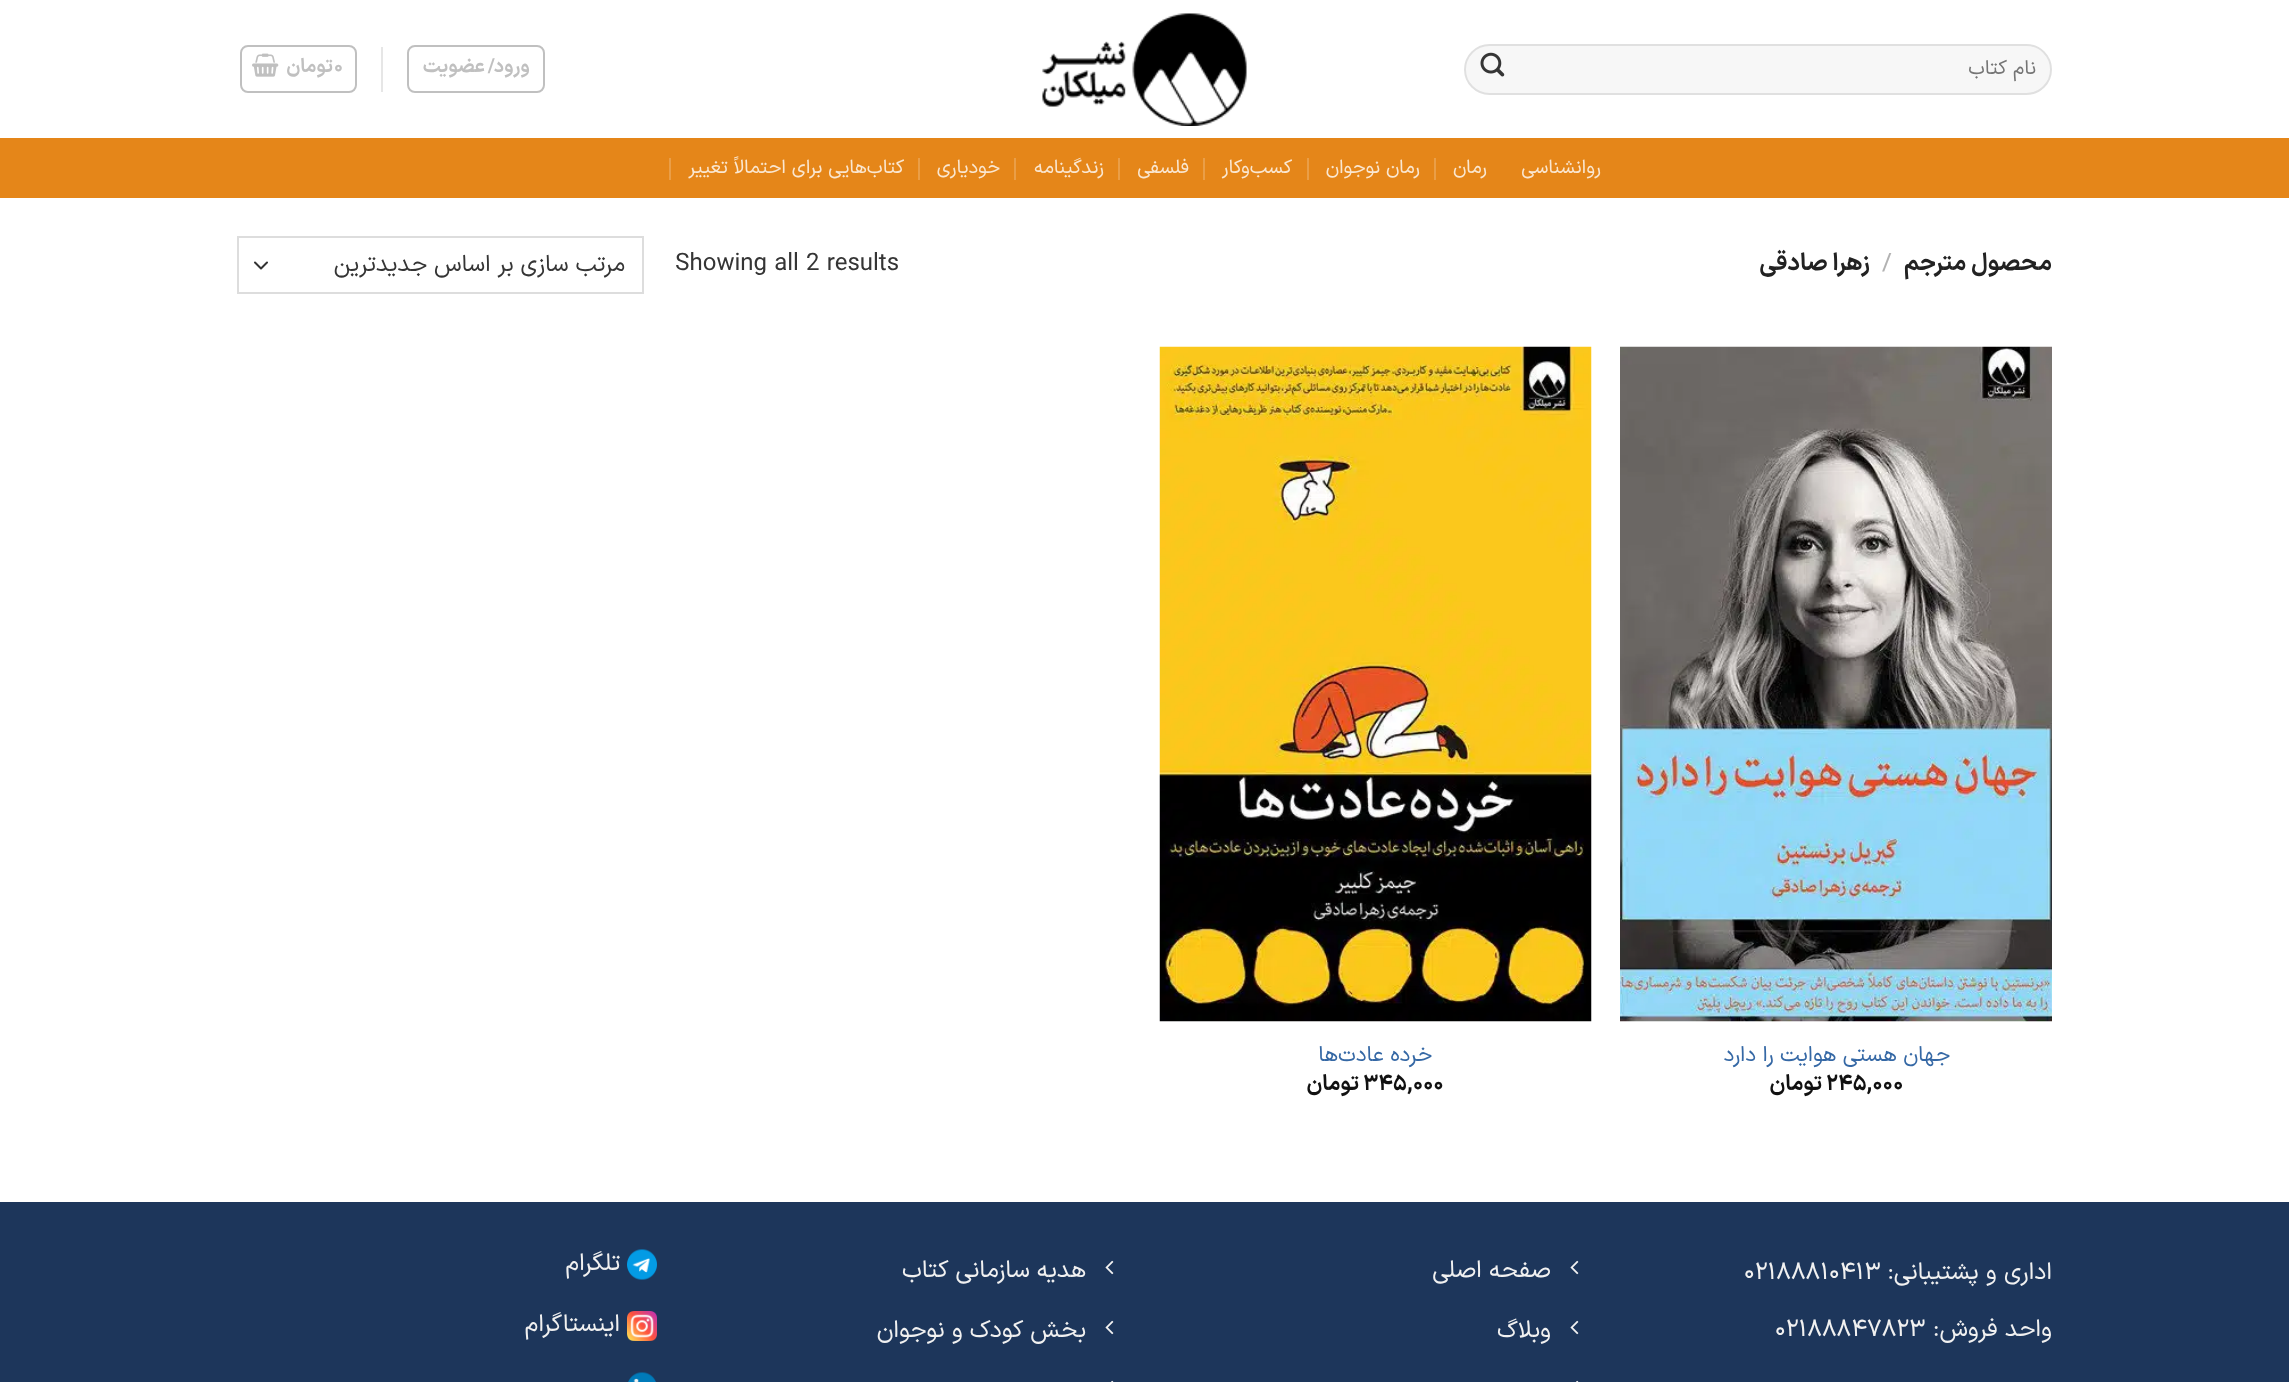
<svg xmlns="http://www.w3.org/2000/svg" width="2289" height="1382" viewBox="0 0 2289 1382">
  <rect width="100%" height="100%" fill="rgb(255,255,255)"/>
  <rect x="1464" y="44" width="588" height="51" rx="25.5" fill="rgb(247,247,247)"/>
  <rect x="1465" y="45" width="586" height="49" rx="24.5" fill="none" stroke="rgba(0,0,0,0.09)" stroke-width="2"/>
  <text x="2036" y="74" font-family="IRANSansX" font-size="20" direction="rtl" fill="rgb(117,117,117)">نام کتاب</text>
  <image x="1480" y="52" width="25" height="25" href="pic1.png"/>
  <image x="1042" y="13" width="205" height="113" href="pic2.png"/>
  <rect x="408" y="46" width="136" height="46" rx="7" fill="none" stroke="rgb(192,192,192)" stroke-width="2"/>
  <g font-family="IRANSansX" font-size="19.25" font-weight="bold" letter-spacing="0.5" direction="rtl" fill="rgb(192,192,192)">
    <text x="530" y="72">ورود</text>
    <text x="495" y="72" word-spacing="-1">/ عضویت</text>
  </g>
  <rect x="381" y="47" width="2" height="45" fill="rgb(230,230,230)"/>
  <rect x="241" y="46" width="115" height="46" rx="7" fill="none" stroke="rgb(192,192,192)" stroke-width="2"/>
  <text x="334" y="72" font-family="IRANSansX" font-size="19.25" font-weight="bold" letter-spacing="0.5" fill="rgb(192,192,192)">۰</text>
  <text x="333" y="72" font-family="IRANSansX" font-size="19.25" font-weight="bold" letter-spacing="0.5" direction="rtl" fill="rgb(192,192,192)">تومان</text>
  <image x="252" y="53" width="27" height="24" href="pic3.png"/>
  <rect x="0" y="138" width="2289" height="60" fill="rgb(229,134,25)"/>
  <g font-family="IRANSansX" font-size="19.25" direction="rtl" fill="rgb(250,231,209)">
    <text x="1601" y="173">روانشناسی</text>
    <text x="1487" y="173">رمان</text>
  </g>
  <rect x="1434" y="158" width="2" height="22" fill="rgb(234,158,71)"/>
  <text x="1420" y="173" font-family="IRANSansX" font-size="19.25" direction="rtl" fill="rgb(250,231,209)">رمان نوجوان</text>
  <rect x="1307" y="158" width="2" height="22" fill="rgb(234,158,71)"/>
  <text x="1292" y="173" font-family="IRANSansX" font-size="19.25" direction="rtl" fill="rgb(250,231,209)">کسب‌وکار</text>
  <rect x="1203" y="158" width="2" height="22" fill="rgb(234,158,71)"/>
  <text x="1189" y="173" font-family="IRANSansX" font-size="19.25" direction="rtl" fill="rgb(250,231,209)">فلسفی</text>
  <rect x="1118" y="158" width="2" height="22" fill="rgb(234,158,71)"/>
  <text x="1104" y="173" font-family="IRANSansX" font-size="19.25" direction="rtl" fill="rgb(250,231,209)">زندگینامه</text>
  <rect x="1014" y="158" width="2" height="22" fill="rgb(234,158,71)"/>
  <text x="1000" y="173" font-family="IRANSansX" font-size="19.25" direction="rtl" fill="rgb(250,231,209)">خودیاری</text>
  <rect x="918" y="158" width="2" height="22" fill="rgb(234,158,71)"/>
  <text x="904" y="173" font-family="IRANSansX" font-size="19.25" direction="rtl" fill="rgb(250,231,209)">کتاب‌هایی برای احتمالاً تغییر</text>
  <rect x="669" y="158" width="2" height="22" fill="rgb(234,158,71)"/>
  <text x="2052" y="270" font-family="IRANSansX" font-size="24" font-weight="bold" direction="rtl" fill="rgb(34,34,34)">محصول مترجم</text>
  <text x="1882" y="270" font-family="IRANSansX" font-size="24" fill="rgb(178,178,178)">/</text>
  <text x="1870" y="270" font-family="IRANSansX" font-size="24" font-weight="bold" direction="rtl" fill="rgb(34,34,34)">زهرا صادقی</text>
  <text x="675" y="270" font-family="IRANSansX" font-size="24" fill="rgb(53,53,53)">Showing all 2 results</text>
  <path d="M255 262.5L261 268.5L267 262.5" fill="none" stroke="rgb(51,51,51)" stroke-width="2" stroke-linecap="round" stroke-linejoin="round"/>
  <rect x="238" y="237" width="405" height="56" fill="none" stroke="rgb(221,221,221)" stroke-width="2"/>
  <text x="625" y="271" font-family="IRANSansX" font-size="23.25" direction="rtl" fill="rgb(53,53,53)">مرتب سازی بر اساس جدیدترین</text>
  <image x="1620" y="346" width="432" height="676" href="pic4.png"/>
  <text x="1950" y="1061" font-family="IRANSansX" font-size="21.6" direction="rtl" fill="rgb(53,104,165)">جهان هستی هوایت را دارد</text>
  <text x="1826" y="1090" font-family="IRANSansX" font-size="21.6" font-weight="bold" fill="rgb(17,17,17)">۲۴۵,۰۰۰</text>
  <text x="1822" y="1090" font-family="IRANSansX" font-size="21.6" font-weight="bold" direction="rtl" fill="rgb(17,17,17)">تومان</text>
  <image x="1159" y="346" width="433" height="676" href="pic5.png"/>
  <text x="1432" y="1061" font-family="IRANSansX" font-size="21.6" direction="rtl" fill="rgb(53,104,165)">خرده عادت‌ها</text>
  <text x="1363" y="1090" font-family="IRANSansX" font-size="21.6" font-weight="bold" fill="rgb(17,17,17)">۳۴۵,۰۰۰</text>
  <text x="1359" y="1090" font-family="IRANSansX" font-size="21.6" font-weight="bold" direction="rtl" fill="rgb(17,17,17)">تومان</text>
  <rect x="0" y="1202" width="2289" height="180" fill="rgb(29,54,91)"/>
  <text x="2052" y="1279" font-family="IRANSansX" font-size="24" direction="rtl" fill="rgb(241,241,241)">اداری و پشتیبانی:</text>
  <text x="1744" y="1279" font-family="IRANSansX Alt" font-size="24" fill="rgb(241,241,241)">02188810413</text>
  <text x="2052" y="1336" font-family="IRANSansX" font-size="24" direction="rtl" fill="rgb(241,241,241)">واحد فروش:</text>
  <text x="1775" y="1336" font-family="IRANSansX Alt" font-size="24" fill="rgb(241,241,241)">02188847823</text>
  <image x="1570" y="1260" width="9" height="15" href="pic6.png"/>
  <text x="1551" y="1277" font-family="IRANSansX" font-size="24" direction="rtl" fill="rgb(241,241,241)">صفحه اصلی</text>
  <image x="1570" y="1320" width="9" height="15" href="pic6.png"/>
  <text x="1551" y="1337" font-family="IRANSansX" font-size="24" direction="rtl" fill="rgb(241,241,241)">وبلاگ</text>
  <image x="1576" y="1380" width="3" height="2" href="pic7.png"/>
  <image x="1105" y="1260" width="9" height="15" href="pic6.png"/>
  <text x="1086" y="1277" font-family="IRANSansX" font-size="24" direction="rtl" fill="rgb(241,241,241)">هدیه سازمانی کتاب</text>
  <image x="1105" y="1320" width="9" height="15" href="pic6.png"/>
  <text x="1086" y="1337" font-family="IRANSansX" font-size="24" direction="rtl" fill="rgb(241,241,241)">بخش کودک و نوجوان</text>
  <image x="1111" y="1380" width="3" height="2" href="pic7.png"/>
  <image x="627" y="1249" width="30" height="31" href="pic8.png"/>
  <text x="620" y="1270" font-family="IRANSansX" font-size="24" direction="rtl" fill="rgb(241,241,241)">تلگرام</text>
  <image x="627" y="1311" width="30" height="30" href="pic9.png"/>
  <text x="620" y="1331" font-family="IRANSansX" font-size="24" direction="rtl" fill="rgb(241,241,241)">اینستاگرام</text>
  <image x="628" y="1372" width="28" height="10" href="pic10.png"/>
</svg>
